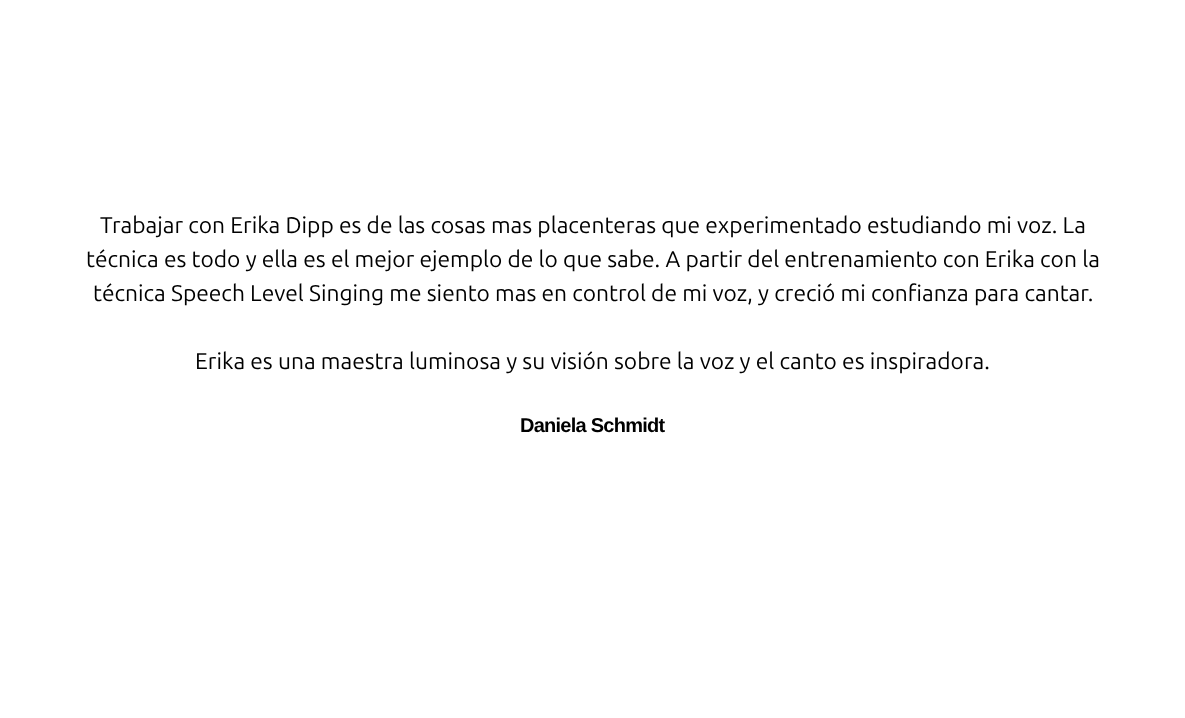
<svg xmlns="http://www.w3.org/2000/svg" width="1185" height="718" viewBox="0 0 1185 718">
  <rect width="100%" height="100%" fill="rgb(255,255,255)"/>
  <g font-family="Ubuntu" font-size="22.75" fill="rgb(0,0,0)">
    <text x="100" y="233">Trabajar con Erika Dipp es de las cosas mas placenteras que experimentado estudiando mi voz. La</text>
    <text x="86" y="267">técnica es todo y ella es el mejor ejemplo de lo que sabe. A partir del entrenamiento con Erika con la</text>
    <text x="93" y="301">técnica Speech Level Singing me siento mas en control de mi voz, y creció mi confianza para cantar.</text>
    <text x="195" y="369">Erika es una maestra luminosa y su visión sobre la voz y el canto es inspiradora.</text>
  </g>
  <text x="520" y="432" font-family="Liberation Sans" font-size="20" font-weight="bold" letter-spacing="-0.75" fill="rgb(0,0,0)">Daniela Schmidt</text>
</svg>
